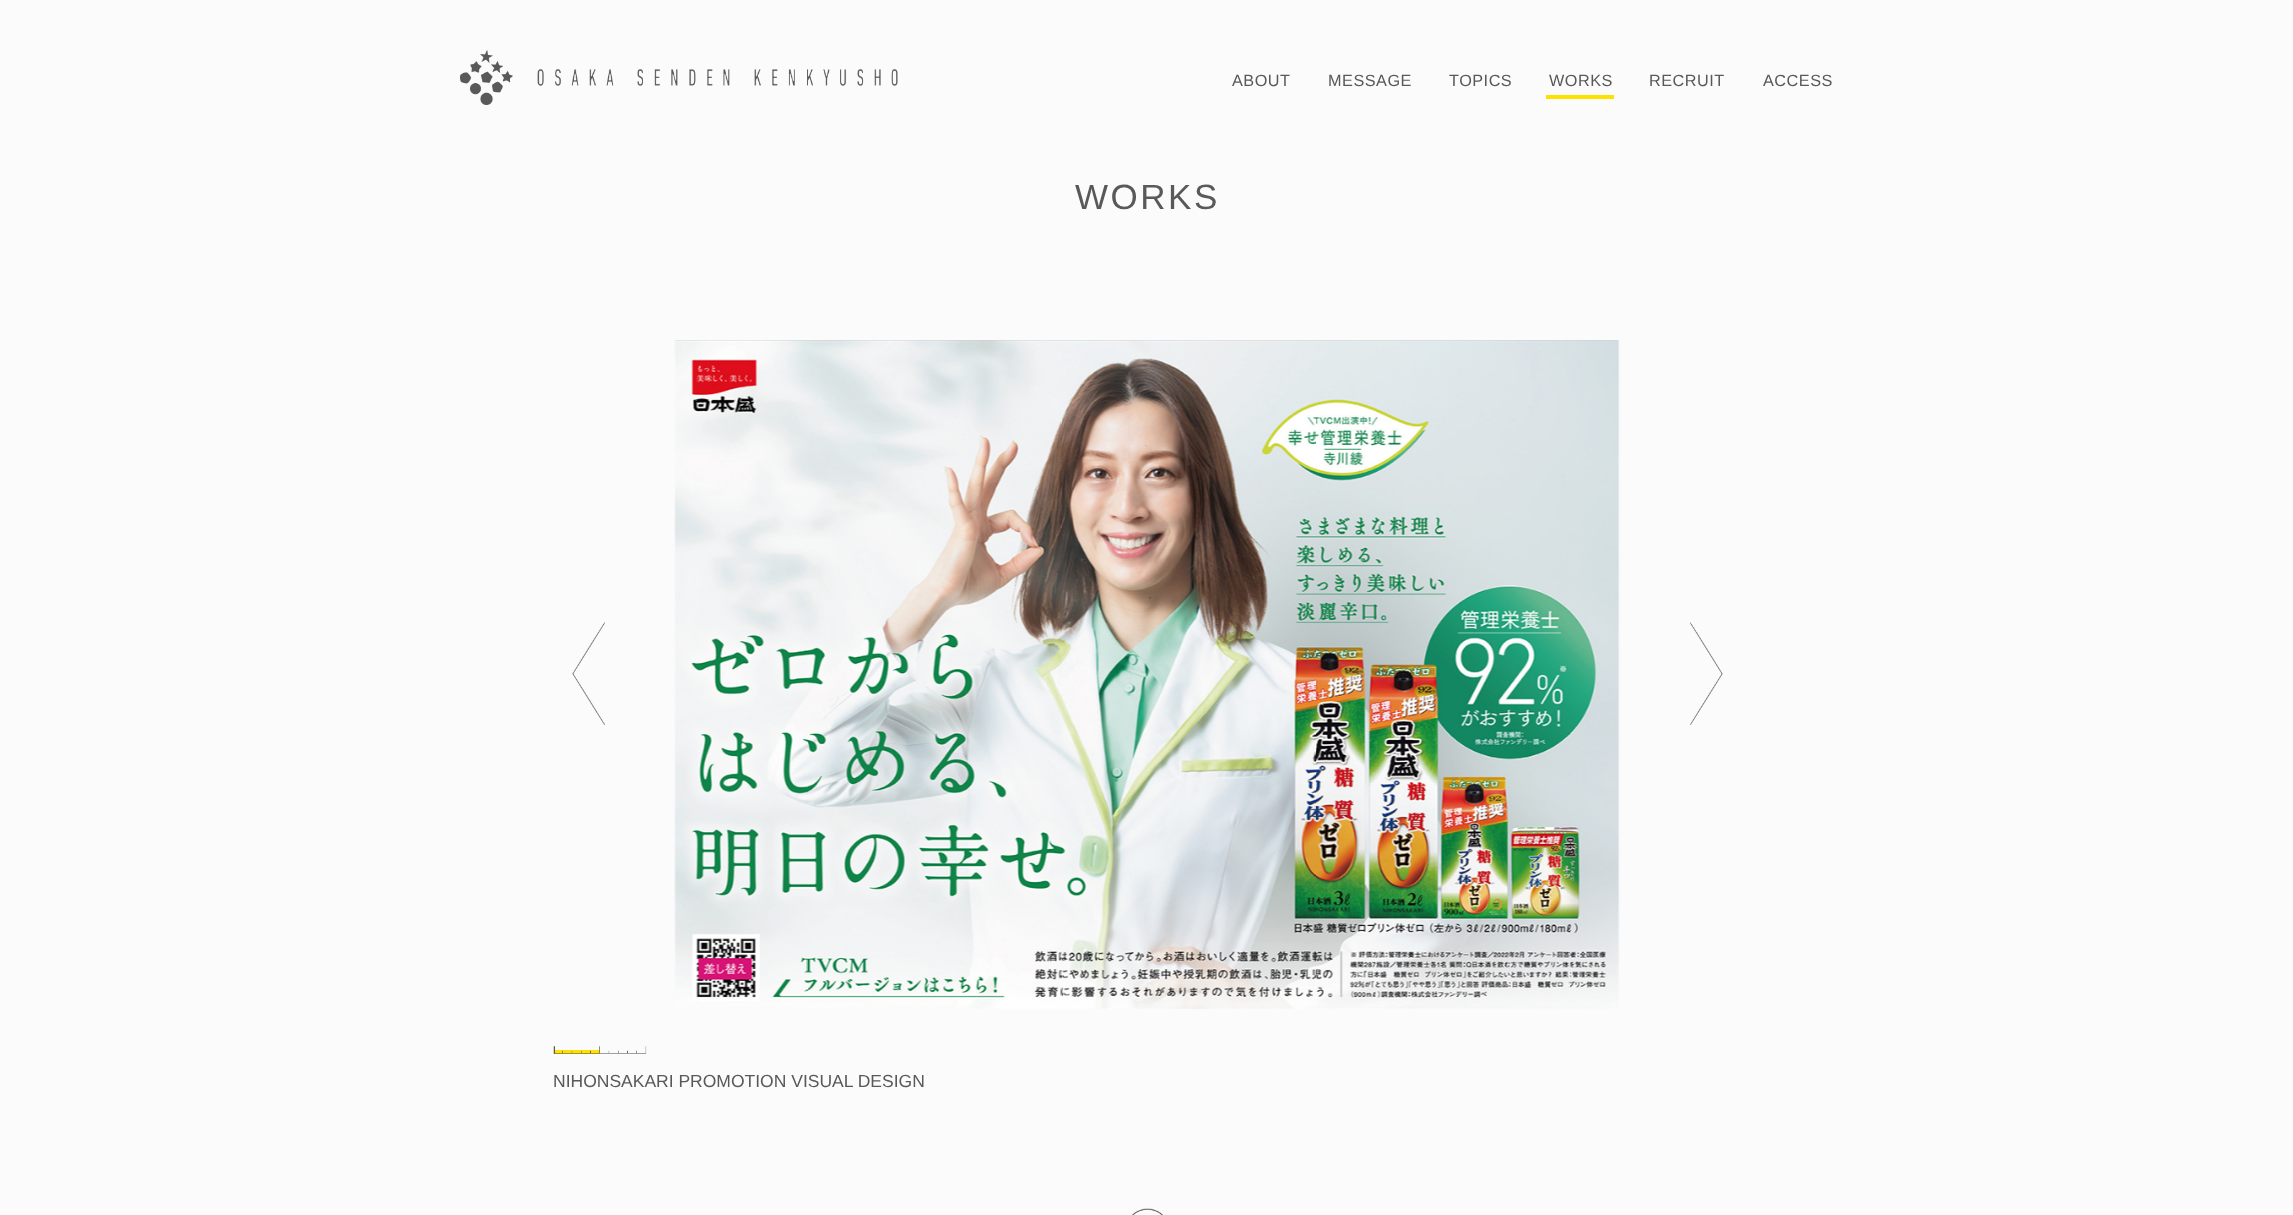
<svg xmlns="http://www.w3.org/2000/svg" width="2293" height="1215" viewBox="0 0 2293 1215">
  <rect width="100%" height="100%" fill="rgb(251,251,251)"/>
  <image x="460" y="50" width="438" height="55" href="pic1.png"/>
  <g font-family="Liberation Sans" font-size="16.25" letter-spacing="0.5" fill="rgb(89,89,89)">
    <text x="1232" y="86">ABOUT</text>
    <text x="1328" y="86">MESSAGE</text>
    <text x="1449" y="86">TOPICS</text>
  </g>
  <rect x="1546" y="95" width="68" height="4" fill="rgb(255,225,0)"/>
  <g font-family="Liberation Sans" font-size="16.25" letter-spacing="0.5" fill="rgb(89,89,89)">
    <text x="1549" y="86">WORKS</text>
    <text x="1649" y="86">RECRUIT</text>
    <text x="1763" y="86">ACCESS</text>
  </g>
  <text x="1075" y="209" font-family="Liberation Sans" font-size="35" letter-spacing="2.5" fill="rgb(89,89,89)">WORKS</text>
  <image x="572" y="622" width="33" height="103" href="pic2.png"/>
  <image x="674" y="340" width="946" height="669" href="pic3.png"/>
  <image x="1690" y="622" width="33" height="103" href="pic4.png"/>
  <rect x="554" y="1050" width="46" height="4" fill="rgb(255,225,0)"/>
  <image x="553" y="1046" width="2" height="8" href="pic5.png"/>
  <image x="553" y="1046" width="47" height="8" href="pic6.png"/>
  <image x="600" y="1046" width="47" height="8" href="pic7.png"/>
  <text x="553" y="1087" font-family="Liberation Sans" font-size="17.5" fill="rgb(89,89,89)">NIHONSAKARI PROMOTION VISUAL DESIGN</text>
  <image x="1132" y="1208" width="31" height="7" href="pic8.png"/>
</svg>
